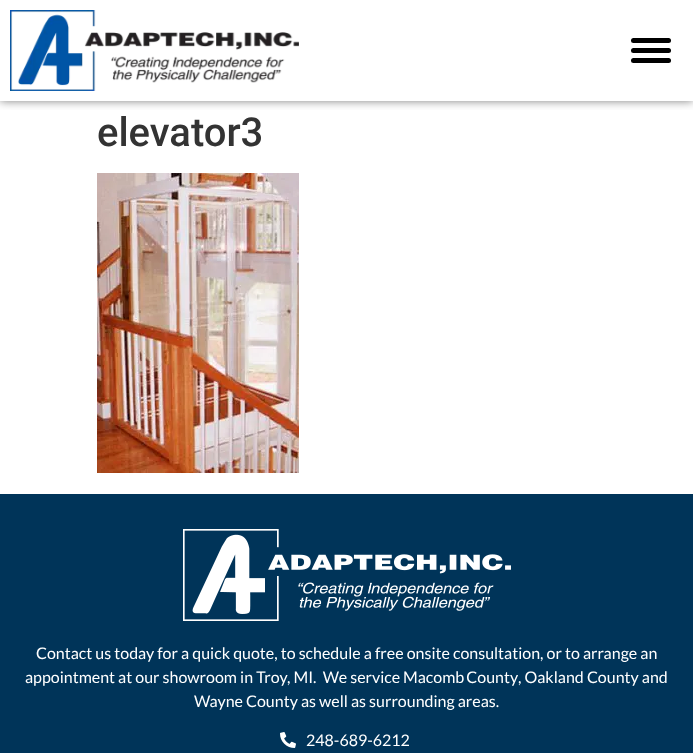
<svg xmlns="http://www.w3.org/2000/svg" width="693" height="753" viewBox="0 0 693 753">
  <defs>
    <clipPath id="clip1"><rect x="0" y="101" width="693" height="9"/></clipPath>
  </defs>
  <rect width="100%" height="100%" fill="rgb(255,255,255)"/>
  <g clip-path="url(#clip1)">
    <rect x="0" y="0" width="693" height="101" fill="rgba(0,0,0,0.5)" filter="blur(5px)"/>
  </g>
  <image x="10" y="10" width="289" height="81" href="pic1.png"/>
  <rect x="631" y="48" width="40" height="5" rx="2.5" fill="rgb(0,0,0)"/>
  <rect x="631" y="38" width="40" height="5" rx="2.5" fill="rgb(0,0,0)"/>
  <rect x="631" y="58" width="40" height="5" rx="2.5" fill="rgb(0,0,0)"/>
  <text x="97" y="146" font-family="Roboto" font-size="40" font-weight="500" fill="rgb(51,51,51)">elevator3</text>
  <image x="97" y="173" width="202" height="300" href="pic2.png"/>
  <rect x="0" y="494" width="693" height="259" fill="rgb(0,52,89)"/>
  <image x="183" y="529" width="328" height="92" href="pic3.png"/>
  <g font-family="Lato" font-size="16" fill="rgb(255,255,255)">
    <text x="36" y="659">Contact us today for a quick quote, to schedule a free onsite consultation, or to arrange an</text>
    <text x="25" y="683">appointment at our showroom in Troy</text>
    <text x="287" y="683" xml:space="preserve">, MI.  We service</text>
    <text x="403" y="683" word-spacing="-1">Macomb County</text>
    <text x="518" y="683">, Oakland County and</text>
    <text x="194" y="707">Wayne County as well as surrounding areas.</text>
  </g>
  <image x="280" y="732" width="16" height="16" href="pic4.png"/>
  <text x="306" y="746" font-family="Lato" font-size="16" fill="rgb(255,255,255)">248-689-6212</text>
</svg>
